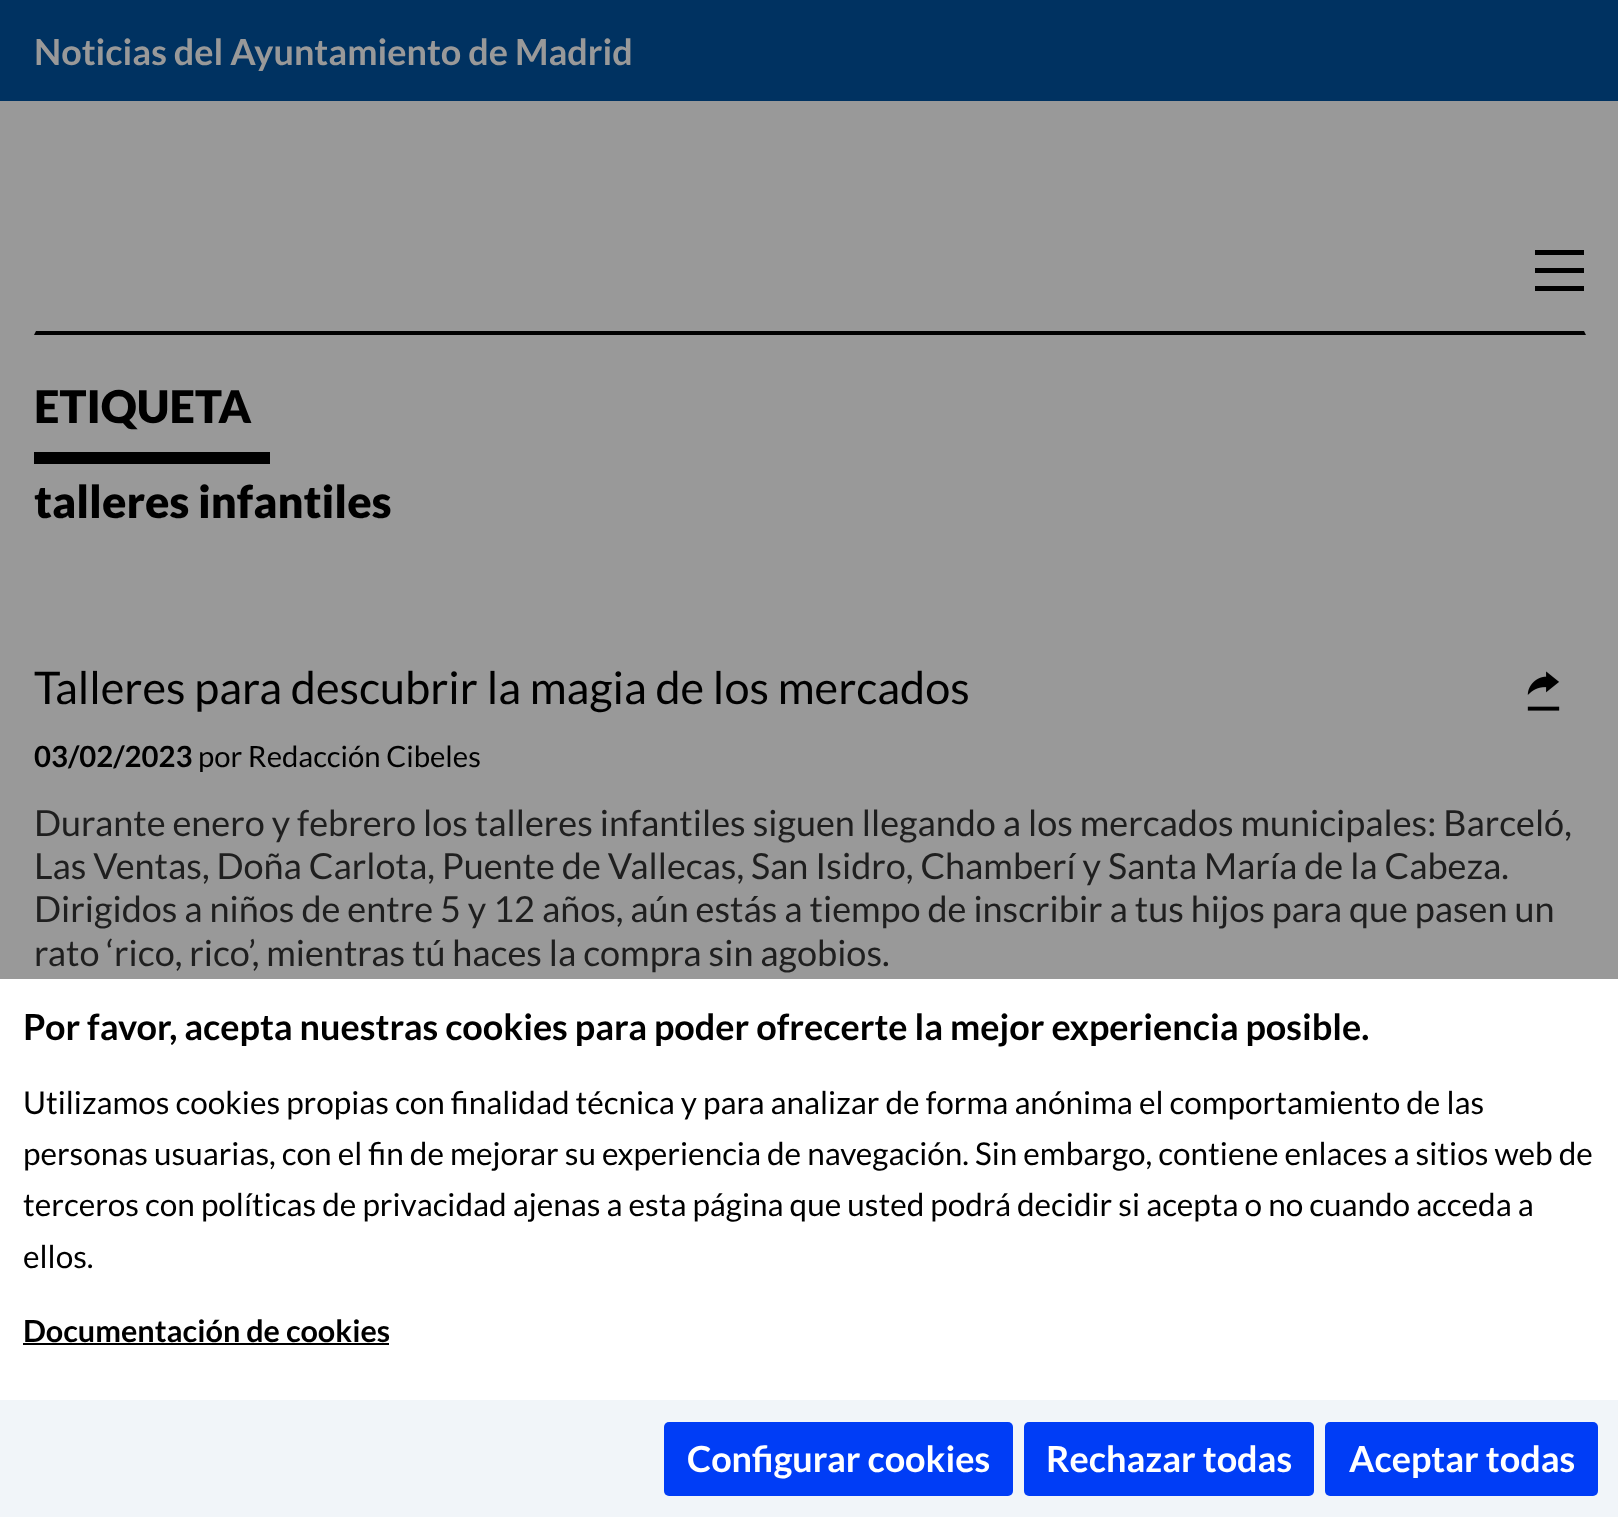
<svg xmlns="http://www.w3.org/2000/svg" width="1618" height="1517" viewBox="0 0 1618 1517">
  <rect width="100%" height="100%" fill="rgb(153,153,153)"/>
  <rect x="0" y="0" width="1618" height="101" fill="rgb(0,50,97)"/>
  <text x="34" y="65" font-family="Lato" font-size="36" font-weight="bold" fill="rgb(153,153,153)">Noticias del Ayuntamiento de Madrid</text>
  <path d="M1586 335H34L36 331H1584Z" fill="rgb(0,0,0)"/>
  <rect x="1535" y="250" width="49" height="5" fill="rgb(0,0,0)"/>
  <rect x="1535" y="268" width="49" height="5" fill="rgb(0,0,0)"/>
  <rect x="1535" y="286" width="49" height="5" fill="rgb(0,0,0)"/>
  <text x="34" y="423" font-family="Lato" font-size="45" font-weight="900" fill="rgb(0,0,0)">ETIQUETA</text>
  <rect x="34" y="452" width="236" height="12" fill="rgb(0,0,0)"/>
  <text x="34" y="518" font-family="Lato" font-size="45" font-weight="900" fill="rgb(0,0,0)">talleres infantiles</text>
  <text x="34" y="704" font-family="Lato" font-size="45" fill="rgb(0,0,0)">Talleres para descubrir la magia de los mercados</text>
  <image x="1527" y="671" width="33" height="40" href="pic1.png"/>
  <text x="34" y="767" font-family="Lato" font-size="29.25" font-weight="bold" fill="rgb(0,0,0)">03/02/2023</text>
  <text x="198" y="767" font-family="Lato" font-size="29.25" fill="rgb(0,0,0)">por Redacción Cibeles</text>
  <g font-family="Lato" font-size="36" fill="rgb(31,31,31)">
    <text>
      <tspan x="34" y="836">Durante enero y febrero los talleres infantiles siguen llegando a los mercados municipales: Barceló,</tspan>
      <tspan x="34" y="879">Las Ventas, Doña Carlota, Puente de Vallecas, San Isidro, Chamberí y Santa María de la Cabeza.</tspan>
      <tspan x="34" y="922">Dirigidos a niños de entre 5 y 12 años, aún estás a tiempo de inscribir a tus hijos para que pasen un</tspan>
      <tspan x="34" y="966">rato ‘rico, rico’, mientras tú haces la compra sin agobios.</tspan>
    </text>
  </g>
  <rect x="0" y="979" width="1618" height="421" fill="rgb(255,255,255)"/>
  <text x="23" y="1040" font-family="Lato" font-size="36" font-weight="bold" fill="rgb(0,0,0)">Por favor, acepta nuestras cookies para poder ofrecerte la mejor experiencia posible.</text>
  <g font-family="Lato" font-size="31.5" fill="rgb(0,0,0)">
    <text>
      <tspan x="23" y="1114">Utilizamos cookies propias con finalidad técnica y para analizar de forma anónima el comportamiento de las</tspan>
      <tspan x="23" y="1165">personas usuarias, con el fin de mejorar su experiencia de navegación. Sin embargo, contiene enlaces a sitios web de</tspan>
      <tspan x="23" y="1216">terceros con políticas de privacidad ajenas a esta página que usted podrá decidir si acepta o no cuando acceda a</tspan>
      <tspan x="23" y="1268">ellos.</tspan>
    </text>
  </g>
  <text x="23" y="1342" font-family="Lato" font-size="30.6" font-weight="bold" fill="rgb(0,0,0)">Documentación de cookies</text>
  <rect x="23" y="1343" width="366" height="2" fill="rgb(0,0,0)"/>
  <rect x="0" y="1400" width="1618" height="117" fill="rgb(241,245,249)"/>
  <rect x="664" y="1422" width="349" height="74" rx="5" fill="rgb(0,61,246)"/>
  <text x="687" y="1472" font-family="Lato" font-size="36" font-weight="bold" fill="rgb(255,255,255)">Configurar cookies</text>
  <rect x="1024" y="1422" width="290" height="74" rx="5" fill="rgb(0,61,246)"/>
  <text x="1046" y="1472" font-family="Lato" font-size="36" font-weight="bold" fill="rgb(255,255,255)">Rechazar todas</text>
  <rect x="1325" y="1422" width="273" height="74" rx="5" fill="rgb(0,61,246)"/>
  <text x="1349" y="1472" font-family="Lato" font-size="36" font-weight="bold" fill="rgb(255,255,255)">Aceptar todas</text>
</svg>
